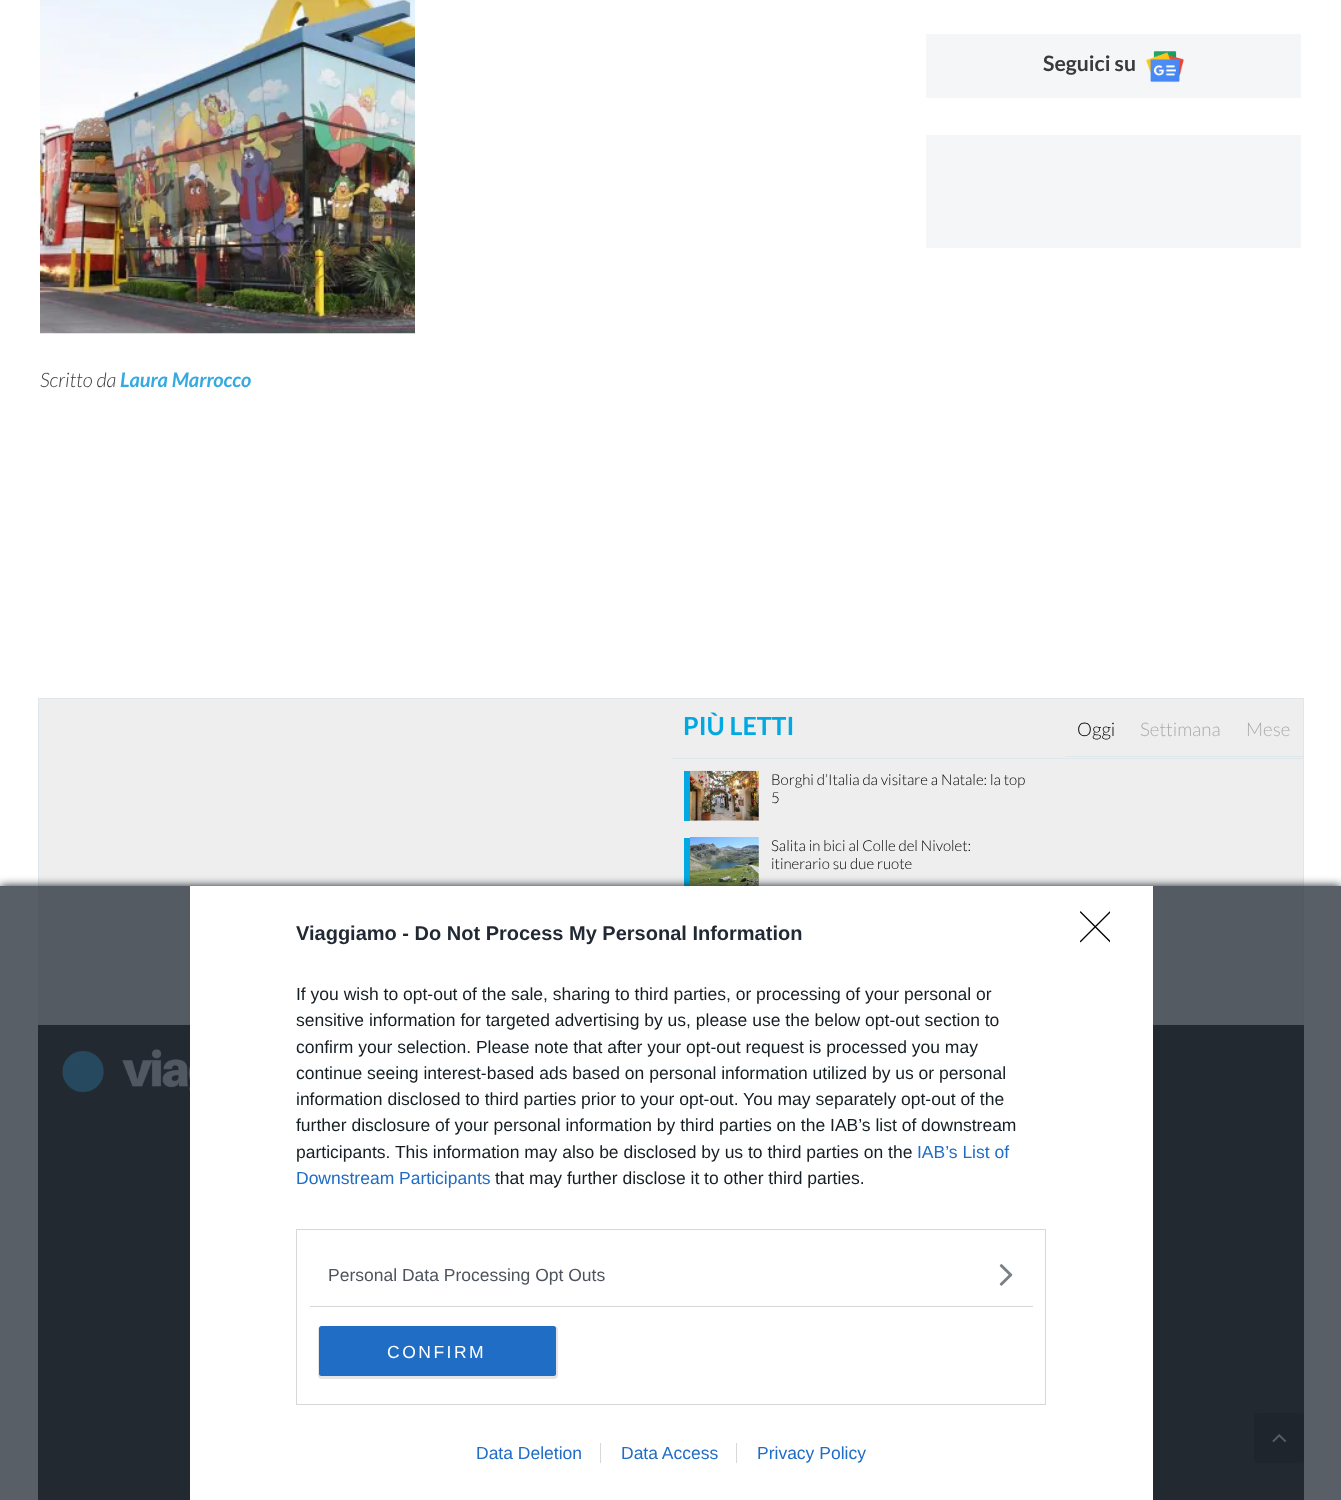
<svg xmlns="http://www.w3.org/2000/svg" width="1341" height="1500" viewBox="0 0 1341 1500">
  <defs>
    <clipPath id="clip1"><path d="M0 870H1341V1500H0ZM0 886H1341V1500H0Z" clip-rule="evenodd"/></clipPath>
    <clipPath id="clip2"><rect x="1080" y="911" width="30" height="32"/></clipPath>
  </defs>
  <rect width="100%" height="100%" fill="rgb(255,255,255)"/>
  <rect x="926" y="34" width="375" height="64" fill="rgb(244,246,247)"/>
  <text x="1043" y="71" font-family="Lato" font-size="21.25" font-weight="bold" fill="rgb(58,58,58)">Seguici su</text>
  <image x="1146" y="51" width="38" height="32" href="pic1.png"/>
  <rect x="926" y="135" width="375" height="113" fill="rgb(244,246,247)"/>
  <image x="40" y="0" width="375" height="334" href="pic2.png"/>
  <text x="40" y="387" font-family="Lato" font-size="20" font-weight="300" font-style="italic" fill="rgb(58,58,58)">Scritto da</text>
  <text x="120" y="387" font-family="Lato" font-size="20" font-weight="bold" font-style="italic" fill="rgb(54,169,225)">Laura Marrocco</text>
  <rect x="38.5" y="698.5" width="1265" height="326" fill="rgb(238,238,238)" stroke="rgb(223,231,234)"/>
  <text x="683" y="735" font-family="Lato" font-size="25" font-weight="bold" fill="rgb(1,168,226)">PIÙ LETTI</text>
  <rect x="1065" y="756" width="238" height="1" fill="rgb(223,231,234)"/>
  <text x="1077" y="736" font-family="Lato" font-size="18.75" font-weight="300" fill="rgb(0,0,0)">Oggi</text>
  <g font-family="Lato" font-size="18.75" font-weight="300" fill="rgb(170,170,170)">
    <text x="1140" y="736">Settimana</text>
    <text x="1246" y="736">Mese</text>
  </g>
  <rect x="671" y="758" width="632" height="1" fill="rgb(223,231,234)"/>
  <rect x="684" y="771" width="6" height="50" fill="rgb(1,168,226)"/>
  <image x="690" y="770" width="69" height="51" href="pic3.png"/>
  <g font-family="Lato" font-size="15" font-weight="300" fill="rgb(0,0,0)">
    <text>
      <tspan x="771" y="785">Borghi d’Italia da visitare a Natale: la top</tspan>
      <tspan x="771" y="803">5</tspan>
    </text>
  </g>
  <rect x="684" y="838" width="6" height="50" fill="rgb(1,168,226)"/>
  <image x="690" y="837" width="69" height="49" href="pic4.png"/>
  <g font-family="Lato" font-size="15" font-weight="300" fill="rgb(0,0,0)">
    <text>
      <tspan x="771" y="851">Salita in bici al Colle del Nivolet:</tspan>
      <tspan x="771" y="869">itinerario su due ruote</tspan>
    </text>
  </g>
  <rect x="38" y="1025" width="1266" height="475" fill="rgb(42,42,42)"/>
  <image x="62" y="1049" width="128" height="44" href="pic6.png"/>
  <rect x="1254" y="1413" width="50" height="50" rx="4" fill="rgb(25,25,25)"/>
  <image x="1272" y="1434" width="15" height="9" href="pic7.png"/>
  <g clip-path="url(#clip1)">
    <rect x="0" y="886" width="1341" height="614" fill="rgb(20,30,35)" filter="blur(5px)"/>
  </g>
  <rect x="0" y="886" width="1341" height="614" fill="rgba(33,41,52,0.75)"/>
  <rect x="190" y="886" width="963" height="614" fill="rgb(255,255,255)"/>
  <text x="296" y="940" font-family="Liberation Sans" font-size="20" font-weight="bold" fill="rgb(33,41,52)">Viaggiamo - Do Not Process My Personal Information</text>
  <g font-family="Liberation Sans" font-size="17.5" fill="rgb(20,30,35)">
    <text>
      <tspan x="296" y="1000">If you wish to opt-out of the sale, sharing to third parties, or processing of your personal or</tspan>
      <tspan x="296" y="1026">sensitive information for targeted advertising by us, please use the below opt-out section to</tspan>
      <tspan x="296" y="1053">confirm your selection. Please note that after your opt-out request is processed you may</tspan>
      <tspan x="296" y="1079">continue seeing interest-based ads based on personal information utilized by us or personal</tspan>
      <tspan x="296" y="1105">information disclosed to third parties prior to your opt-out. You may separately opt-out of the</tspan>
      <tspan x="296" y="1131">further disclosure of your personal information by third parties on the IAB’s list of downstream</tspan>
      <tspan x="296" y="1158">participants. This information may also be disclosed by us to third parties on the</tspan>
    </text>
  </g>
  <g font-family="Liberation Sans" font-size="17.5" fill="rgb(32,109,197)">
    <text x="917" y="1158">IAB’s List of</text>
    <text x="296" y="1184">Downstream Participants</text>
  </g>
  <text x="495" y="1184" font-family="Liberation Sans" font-size="17.5" fill="rgb(20,30,35)">that may further disclose it to other third parties.</text>
  <rect x="296.5" y="1229.5" width="749" height="175" fill="none" stroke="rgb(216,216,216)"/>
  <rect x="310" y="1306" width="723" height="1" fill="rgb(216,216,216)"/>
  <text x="328" y="1281" font-family="Liberation Sans" font-size="17.5" fill="rgb(77,84,93)">Personal Data Processing Opt Outs</text>
  <image x="999" y="1264" width="14" height="22" href="pic5.png"/>
  <rect x="318" y="1326" width="240" height="53" rx="4" fill="rgba(0,0,0,0.1)" filter="blur(0.5px)"/>
  <rect x="319" y="1326" width="237" height="50" rx="2.5" fill="rgb(32,109,197)"/>
  <text x="387" y="1358" font-family="Liberation Sans" font-size="17.5" letter-spacing="2.5" fill="rgb(255,255,255)">CONFIRM</text>
  <g clip-path="url(#clip2)">
    <path d="M1080.5 912L1110 941.5M1110 912L1080.5 941.5" fill="none" stroke="rgb(0,0,0)" stroke-width="1.3" stroke-linecap="round" stroke-linejoin="round"/>
  </g>
  <g font-family="Liberation Sans" font-size="17.5" fill="rgb(32,109,197)">
    <text x="476" y="1459">Data Deletion</text>
    <text x="621" y="1459">Data Access</text>
  </g>
  <rect x="600" y="1443" width="1" height="20" fill="rgb(216,216,216)"/>
  <text x="757" y="1459" font-family="Liberation Sans" font-size="17.5" fill="rgb(32,109,197)">Privacy Policy</text>
  <rect x="736" y="1443" width="1" height="20" fill="rgb(216,216,216)"/>
</svg>
